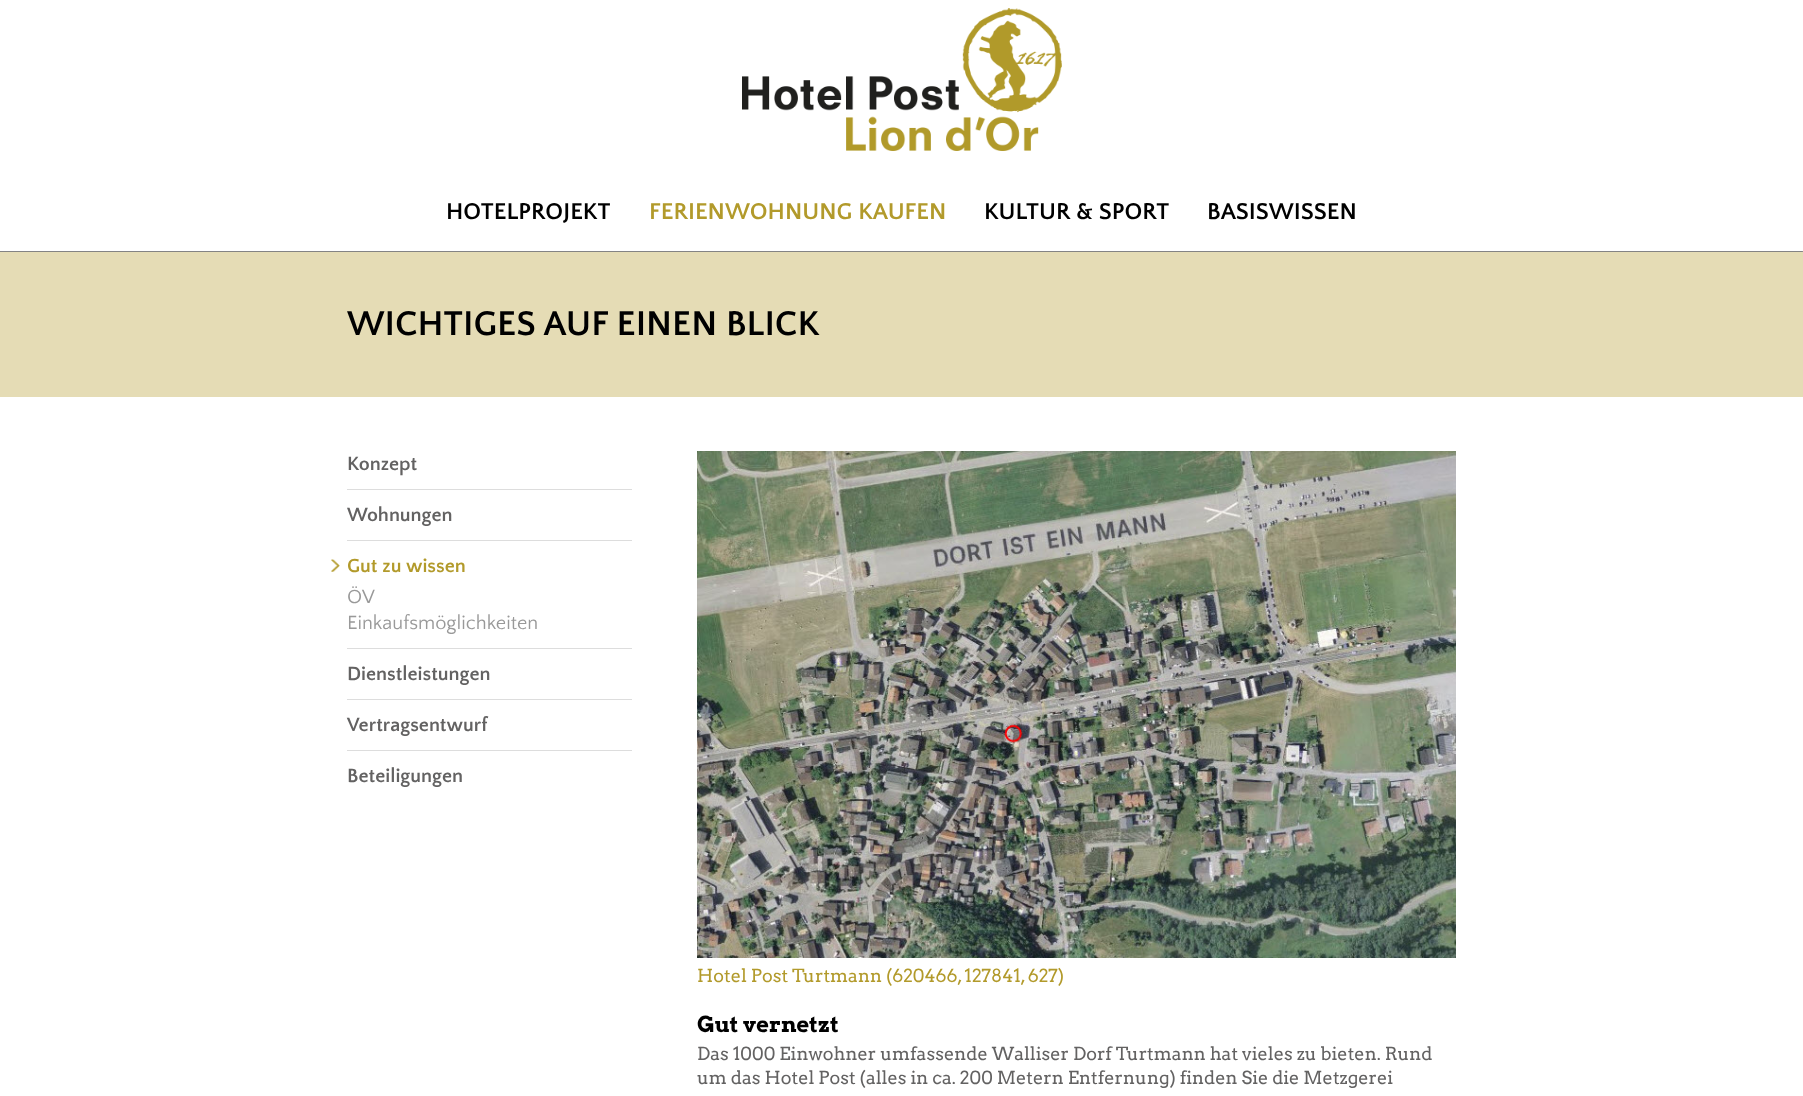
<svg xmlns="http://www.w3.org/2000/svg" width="1803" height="1096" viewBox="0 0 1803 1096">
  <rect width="100%" height="100%" fill="rgb(255,255,255)"/>
  <image x="742" y="8" width="320" height="143" href="pic1.png"/>
  <text x="446" y="219" font-family="Quattrocento Sans" font-size="24" font-weight="bold" fill="rgb(0,0,0)">HOTELPROJEKT</text>
  <text x="649" y="219" font-family="Quattrocento Sans" font-size="24" font-weight="bold" fill="rgb(178,154,43)">FERIENWOHNUNG KAUFEN</text>
  <g font-family="Quattrocento Sans" font-size="24" font-weight="bold" fill="rgb(0,0,0)">
    <text x="984" y="219">KULTUR &amp; SPORT</text>
    <text x="1207" y="219">BASISWISSEN</text>
  </g>
  <image x="0" y="251" width="1803" height="1" href="pic2.png"/>
  <rect x="0" y="252" width="1803" height="145" fill="rgb(229,220,181)"/>
  <text x="347" y="335" font-family="Quattrocento Sans" font-size="36" font-weight="bold" fill="rgb(0,0,0)">WICHTIGES AUF EINEN BLICK</text>
  <text x="347" y="470" font-family="Quattrocento Sans" font-size="20" font-weight="bold" fill="rgb(99,98,98)">Konzept</text>
  <rect x="347" y="489" width="285" height="1" fill="rgb(221,221,221)"/>
  <text x="347" y="521" font-family="Quattrocento Sans" font-size="20" font-weight="bold" fill="rgb(99,98,98)">Wohnungen</text>
  <image x="331" y="559" width="9" height="13" href="pic3.png"/>
  <rect x="347" y="540" width="285" height="1" fill="rgb(221,221,221)"/>
  <text x="347" y="572" font-family="Quattrocento Sans" font-size="20" font-weight="bold" fill="rgb(178,154,43)">Gut zu wissen</text>
  <g font-family="Quattrocento Sans" font-size="20" fill="rgb(153,153,153)">
    <text>
      <tspan x="347" y="603">ÖV</tspan>
      <tspan x="347" y="629">Einkaufsmöglichkeiten</tspan>
    </text>
  </g>
  <rect x="347" y="648" width="285" height="1" fill="rgb(221,221,221)"/>
  <text x="347" y="680" font-family="Quattrocento Sans" font-size="20" font-weight="bold" fill="rgb(99,98,98)">Dienstleistungen</text>
  <rect x="347" y="699" width="285" height="1" fill="rgb(221,221,221)"/>
  <text x="347" y="731" font-family="Quattrocento Sans" font-size="20" font-weight="bold" fill="rgb(99,98,98)">Vertragsentwurf</text>
  <rect x="347" y="750" width="285" height="1" fill="rgb(221,221,221)"/>
  <text x="347" y="782" font-family="Quattrocento Sans" font-size="20" font-weight="bold" fill="rgb(99,98,98)">Beteiligungen</text>
  <image x="697" y="451" width="759" height="507" href="pic4.png"/>
  <text x="697" y="982" font-family="Arvo" font-size="18" fill="rgb(178,154,43)">Hotel Post Turtmann (620466, 127841, 627)</text>
  <text x="697" y="1032" font-family="Arvo" font-size="22" font-weight="bold" fill="rgb(0,0,0)">Gut vernetzt</text>
  <g font-family="Arvo" font-size="18" fill="rgb(99,98,98)">
    <text>
      <tspan x="697" y="1060">Das 1000 Einwohner umfassende Walliser Dorf Turtmann hat vieles zu bieten. Rund</tspan>
      <tspan x="697" y="1084">um das Hotel Post (alles in ca. 200 Metern Entfernung) finden Sie die Metzgerei</tspan>
    </text>
  </g>
</svg>
